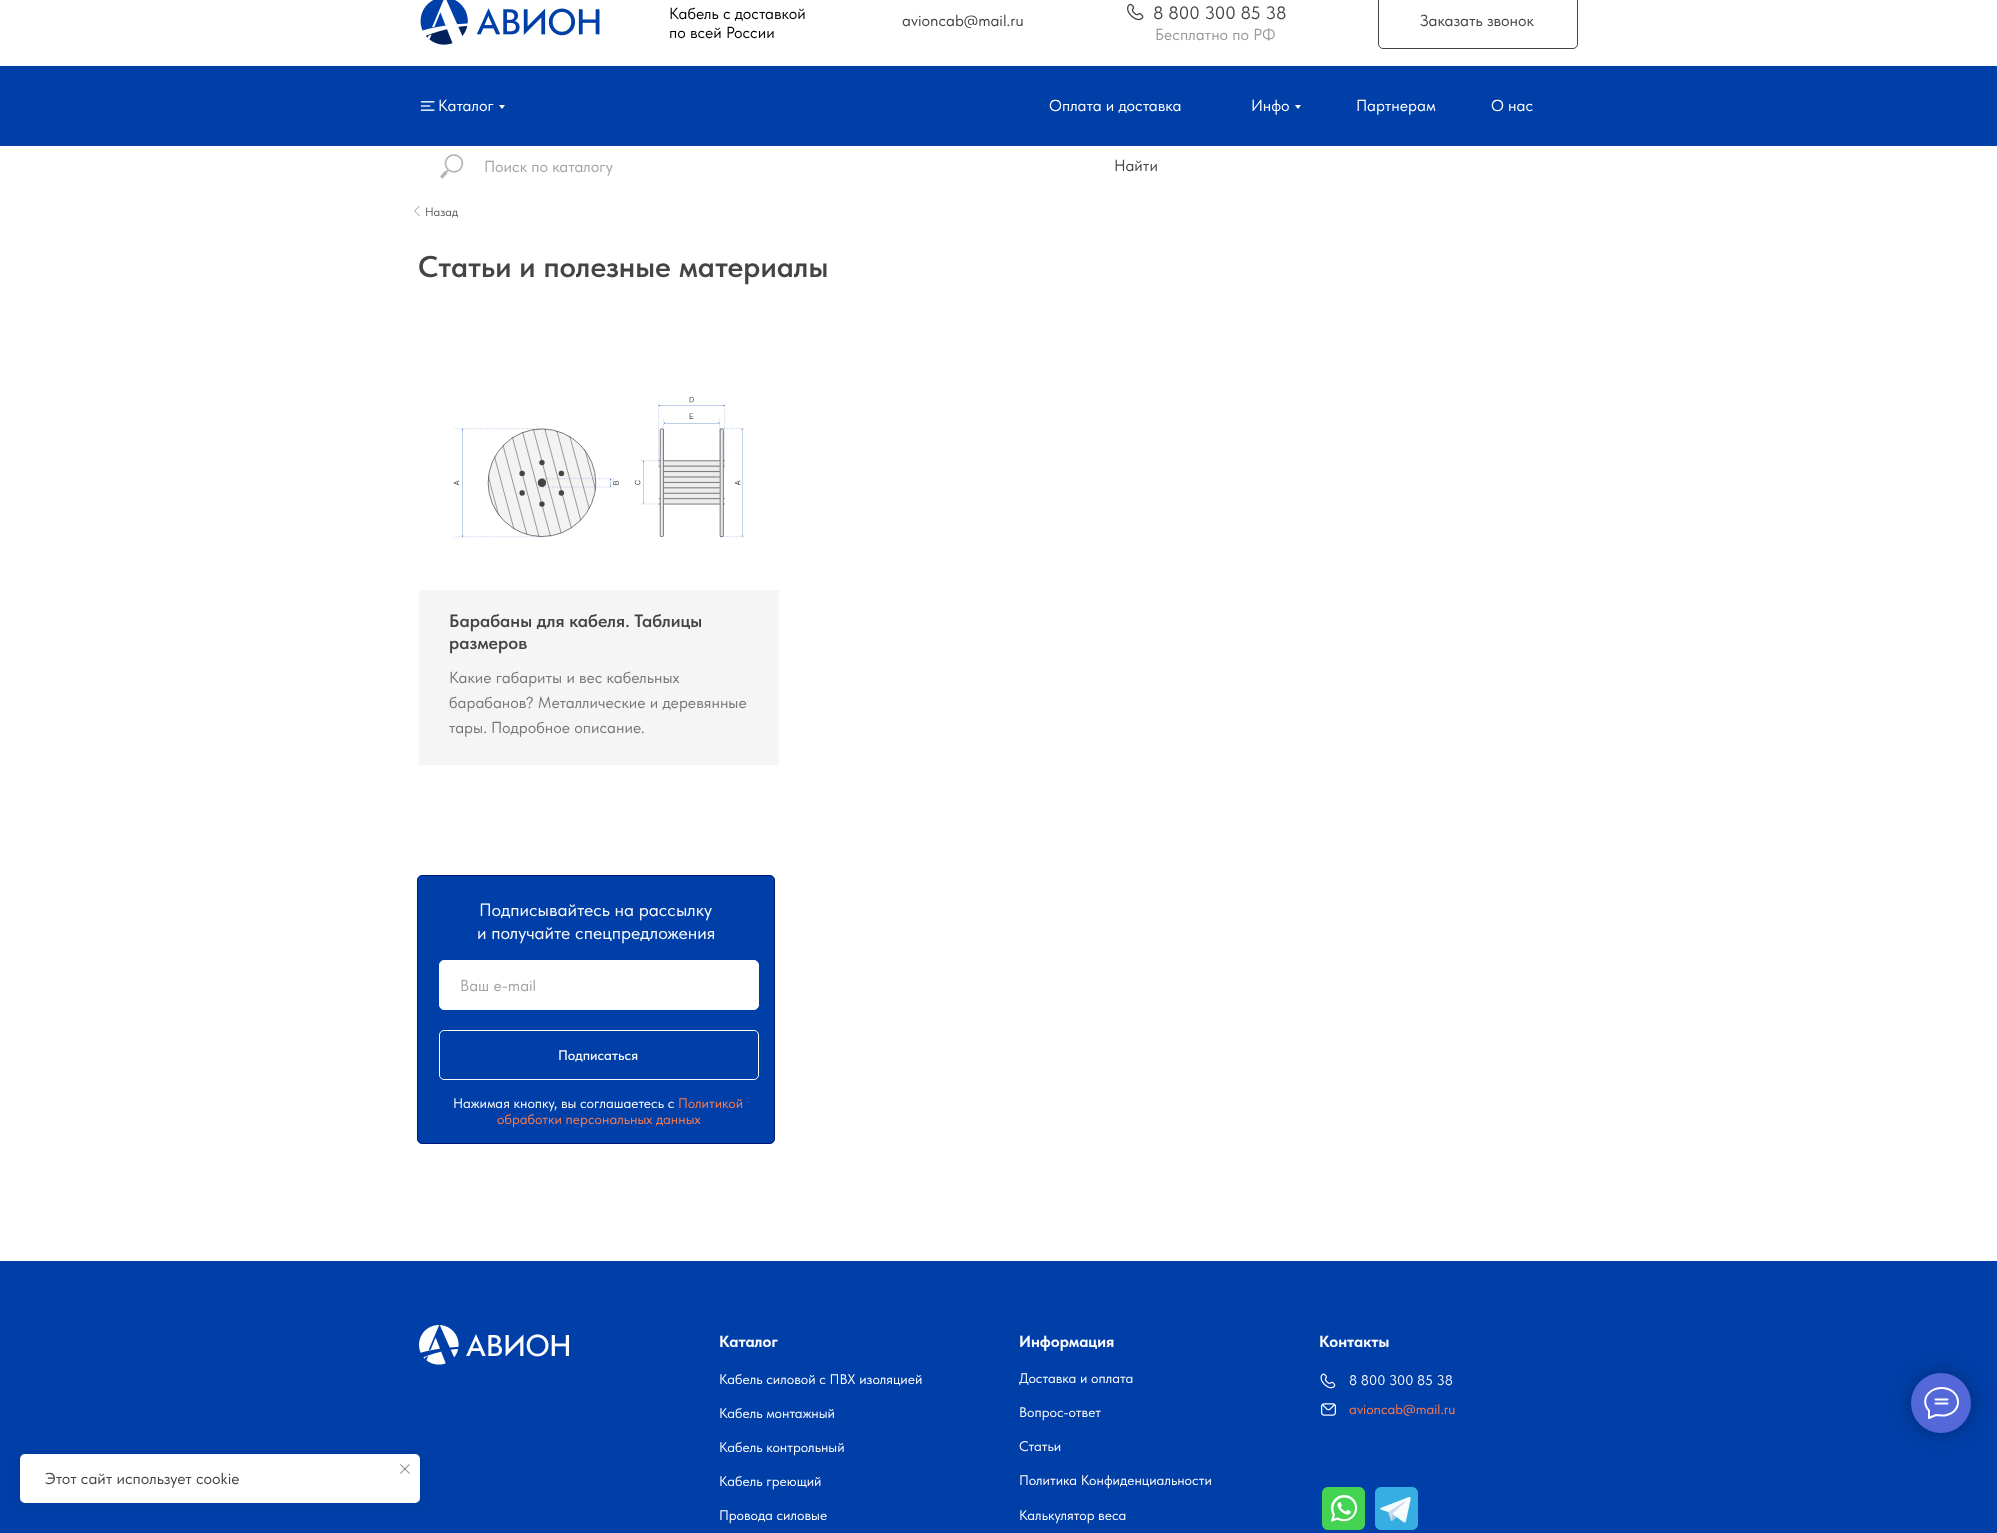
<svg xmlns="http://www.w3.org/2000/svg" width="1997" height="1533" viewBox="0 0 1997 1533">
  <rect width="100%" height="100%" fill="rgb(255,255,255)"/>
  <image x="420" y="0" width="180" height="45" href="pic1.png"/>
  <g font-family="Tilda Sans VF" font-size="16" fill="rgb(0,0,0)">
    <text>
      <tspan x="669" y="19">Кабель с доставкой</tspan>
      <tspan x="669" y="38">по всей России</tspan>
    </text>
  </g>
  <text x="902" y="26" font-family="Tilda Sans VF" font-size="16" fill="rgb(68,68,68)">avioncab@mail.ru</text>
  <image x="1127" y="3" width="17" height="18" href="pic2.png"/>
  <text x="1153" y="19" font-family="Tilda Sans VF" font-size="18" fill="rgb(68,68,68)">8 800 300 85 38</text>
  <rect x="1378.5" y="-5.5" width="199" height="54" rx="4.5" fill="none" stroke="rgb(68,68,68)"/>
  <text x="1420" y="26" font-family="Tilda Sans VF" font-size="16" fill="rgb(68,68,68)">Заказать звонок</text>
  <text x="1155" y="40" font-family="Tilda Sans VF" font-size="16" fill="rgb(153,153,153)">Бесплатно по РФ</text>
  <rect x="0" y="66" width="1997" height="80" fill="rgb(0,63,168)"/>
  <image x="420" y="101" width="15" height="10" href="pic3.png"/>
  <text x="438" y="111" font-family="Tilda Sans VF" font-size="16" fill="rgb(255,255,255)">Каталог</text>
  <path d="M499 105H505L502 109Z" fill="rgb(255,255,255)"/>
  <g font-family="Tilda Sans VF" font-size="16" fill="rgb(255,255,255)">
    <text x="1049" y="111">Оплата и доставка</text>
    <text x="1251" y="111">Инфо</text>
  </g>
  <path d="M1295 105H1301L1298 109Z" fill="rgb(255,255,255)"/>
  <g font-family="Tilda Sans VF" font-size="16" fill="rgb(255,255,255)">
    <text x="1356" y="111">Партнерам</text>
    <text x="1491" y="111">О нас</text>
  </g>
  <image x="440" y="154" width="24" height="25" href="pic4.png"/>
  <text x="484" y="172" font-family="Tilda Sans VF" font-size="16" fill="rgb(162,162,162)">Поиск по каталогу</text>
  <text x="1114" y="171" font-family="Tilda Sans VF" font-size="16" fill="rgb(68,68,68)">Найти</text>
  <image x="414" y="206" width="6" height="10" href="pic5.png"/>
  <text x="425" y="216" font-family="Tilda Sans VF" font-size="12" fill="rgb(87,87,87)">Назад</text>
  <text x="418" y="277" font-family="Tilda Sans VF" font-size="30" font-weight="600" fill="rgb(68,68,68)">Статьи и полезные материалы</text>
  <image x="453" y="397" width="292" height="141" href="pic6.png"/>
  <rect x="419" y="590" width="360" height="175" fill="rgb(245,245,245)"/>
  <g font-family="Tilda Sans VF" font-size="18" font-weight="600" fill="rgb(68,68,68)">
    <text>
      <tspan x="449" y="627">Барабаны для кабеля. Таблицы</tspan>
      <tspan x="449" y="649">размеров</tspan>
    </text>
  </g>
  <g font-family="Tilda Sans VF" font-size="16" fill="rgb(119,119,119)">
    <text>
      <tspan x="449" y="683">Какие габариты и вес кабельных</tspan>
      <tspan x="449" y="708">барабанов? Металлические и деревянные</tspan>
      <tspan x="449" y="733">тары. Подробное описание.</tspan>
    </text>
  </g>
  <rect x="417.5" y="875.5" width="357" height="268" rx="4.5" fill="rgb(0,63,168)" stroke="rgb(0,25,120)"/>
  <g font-family="Tilda Sans VF" font-size="18" fill="rgb(255,255,255)">
    <text x="479" y="916">Подписывайтесь на рассылку</text>
    <text x="477" y="939">и получайте спецпредложения</text>
  </g>
  <rect x="439.5" y="960.5" width="319" height="49" rx="4.5" fill="rgb(255,255,255)" stroke="rgb(255,255,255)"/>
  <text x="460" y="991" font-family="Tilda Sans VF" font-size="16" fill="rgb(162,162,162)">Ваш e-mail</text>
  <rect x="439.5" y="1030.5" width="319" height="49" rx="4.5" fill="none" stroke="rgb(255,255,255)"/>
  <text x="558" y="1060" font-family="Tilda Sans VF" font-size="14" font-weight="500" fill="rgb(255,255,255)">Подписаться</text>
  <text x="453" y="1108" font-family="Tilda Sans VF" font-size="14" fill="rgb(255,255,255)">Нажимая кнопку, вы соглашаетесь с</text>
  <g font-family="Tilda Sans VF" font-size="14" fill="rgb(255,125,74)">
    <text x="678" y="1108">Политикой</text>
    <text x="497" y="1124">обработки персональных данных</text>
  </g>
  <rect x="0" y="1261" width="1997" height="272" fill="rgb(0,63,168)"/>
  <image x="419" y="1325" width="150" height="40" href="pic7.png"/>
  <g font-family="Tilda Sans VF" font-size="16" font-weight="bold" fill="rgb(255,255,255)">
    <text x="719" y="1347">Каталог</text>
    <text x="1019" y="1347">Информация</text>
    <text x="1319" y="1347">Контакты</text>
  </g>
  <g font-family="Tilda Sans VF" font-size="14" fill="rgb(255,255,255)">
    <text x="719" y="1384">Кабель силовой с ПВХ изоляцией</text>
    <text x="1019" y="1383">Доставка и оплата</text>
  </g>
  <image x="1320" y="1373" width="16" height="16" href="pic8.png"/>
  <g font-family="Tilda Sans VF" font-size="14" fill="rgb(255,255,255)">
    <text x="1349" y="1385">8 800 300 85 38</text>
    <text x="719" y="1418">Кабель монтажный</text>
    <text x="1019" y="1417">Вопрос-ответ</text>
  </g>
  <image x="1321" y="1403" width="15" height="13" href="pic9.png"/>
  <text x="1349" y="1414" font-family="Tilda Sans VF" font-size="14" fill="rgb(255,125,74)">avioncab@mail.ru</text>
  <g font-family="Tilda Sans VF" font-size="14" fill="rgb(255,255,255)">
    <text x="719" y="1452">Кабель контрольный</text>
    <text x="1019" y="1451">Статьи</text>
    <text x="719" y="1486">Кабель греющий</text>
    <text x="1019" y="1485">Политика Конфиденциальности</text>
    <text x="719" y="1520">Провода силовые</text>
    <text x="1019" y="1520">Калькулятор веса</text>
  </g>
  <image x="1322" y="1487" width="43" height="43" href="pic10.png"/>
  <image x="1375" y="1487" width="43" height="43" href="pic11.png"/>
  <rect x="1911" y="1373" width="60" height="60" rx="30" fill="rgba(0,0,0,0.3)" filter="blur(10px)"/>
  <circle cx="1941" cy="1403" r="30" fill="rgb(84,104,218)"/>
  <path d="M1935.5 1399.5H1947.5M1935.5 1403.5H1947.5M1929 1410.5C1923.5 1405 1924 1397 1930 1392C1933 1389.5 1937.5 1388 1941.5 1388C1961 1388 1964.5 1412 1945 1415.5C1941 1416 1939.5 1415 1936 1415L1929 1418V1411Z" fill="none" stroke="rgb(255,255,255)" stroke-width="2" stroke-linecap="round" stroke-linejoin="round"/>
  <rect x="20" y="1454" width="400" height="49" rx="5" fill="rgba(0,0,0,0.1)" filter="blur(5px)"/>
  <rect x="20" y="1454" width="400" height="49" rx="5" fill="rgb(255,255,255)"/>
  <image x="400" y="1464" width="10" height="10" href="pic12.png"/>
  <text x="45" y="1484" font-family="Tilda Sans VF" font-size="16" fill="rgb(68,68,68)">Этот сайт использует cookie</text>
</svg>
